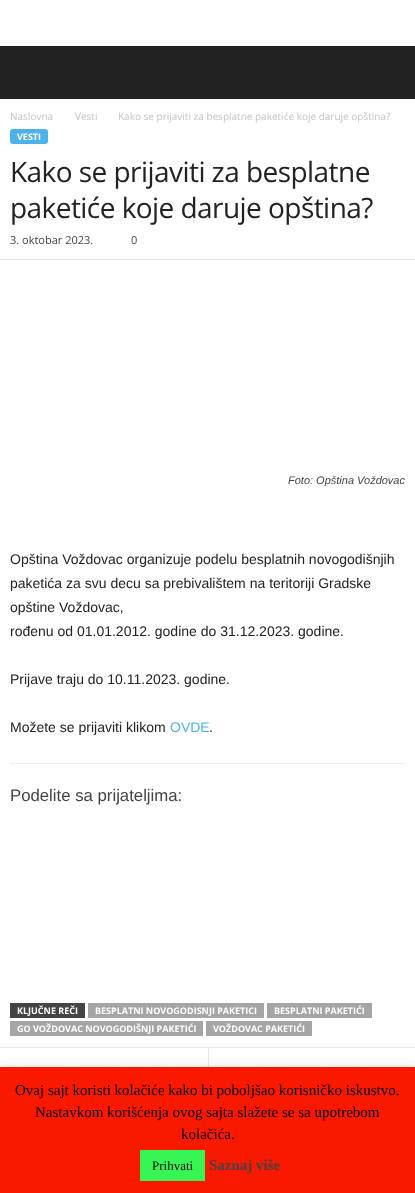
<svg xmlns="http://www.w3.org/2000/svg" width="415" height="1193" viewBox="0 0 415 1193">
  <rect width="100%" height="100%" fill="rgb(255,255,255)"/>
  <rect x="0" y="46" width="415" height="53" fill="rgb(34,34,34)"/>
  <g font-family="Open Sans" font-size="10" fill="rgb(195,195,195)">
    <text x="10" y="120">Naslovna</text>
    <text x="75" y="120">Vesti</text>
    <text x="118" y="120">Kako se prijaviti za besplatne paketiće koje daruje opština?</text>
  </g>
  <rect x="10" y="129" width="38" height="15" rx="3" fill="rgb(77,178,236)"/>
  <text x="17" y="140" font-family="Open Sans" font-size="9" font-weight="bold" fill="rgb(255,255,255)">VESTI</text>
  <g font-family="Open Sans" font-size="28" letter-spacing="-0.55" fill="rgb(34,34,34)">
    <text>
      <tspan x="10" y="182">Kako se prijaviti za besplatne</tspan>
      <tspan x="10" y="218">paketiće koje daruje opština?</tspan>
    </text>
  </g>
  <g font-family="Open Sans" font-size="11" fill="rgb(68,68,68)">
    <text x="10" y="244">3. oktobar 2023.</text>
    <text x="131" y="244">0</text>
  </g>
  <rect x="0" y="259" width="415" height="1" fill="rgb(230,230,230)"/>
  <text x="288" y="484" font-family="Liberation Sans" font-size="11" font-style="italic" fill="rgb(68,68,68)">Foto: Opština Voždovac</text>
  <g font-family="Liberation Sans" font-size="14" fill="rgb(34,34,34)">
    <text>
      <tspan x="10" y="564">Opština Voždovac organizuje podelu besplatnih novogodišnjih</tspan>
      <tspan x="10" y="588">paketića za svu decu sa prebivalištem na teritoriji Gradske</tspan>
      <tspan x="10" y="612">opštine Voždovac,</tspan>
      <tspan x="10" y="636">rođenu od 01.01.2012. godine do 31.12.2023. godine.</tspan>
    </text>
    <text x="10" y="684">Prijave traju do 10.11.2023. godine.</text>
    <text x="10" y="732">Možete se prijaviti klikom</text>
  </g>
  <text x="170" y="732" font-family="Liberation Sans" font-size="14" fill="rgb(77,178,236)">OVDE</text>
  <text x="209" y="732" font-family="Liberation Sans" font-size="14" fill="rgb(34,34,34)">.</text>
  <rect x="10" y="763" width="395" height="1" fill="rgb(238,238,238)"/>
  <text x="10" y="801" font-family="Liberation Sans" font-size="16.75" fill="rgb(68,68,68)">Podelite sa prijateljima:</text>
  <rect x="10" y="1003" width="75" height="15" fill="rgb(68,68,68)"/>
  <text x="17" y="1014" font-family="Open Sans" font-size="9" font-weight="bold" fill="rgb(255,255,255)">KLJUČNE REČI</text>
  <rect x="88" y="1003" width="176" height="15" fill="rgb(165,165,165)"/>
  <text x="95" y="1014" font-family="Open Sans" font-size="9" font-weight="bold" fill="rgb(255,255,255)">BESPLATNI NOVOGODISNJI PAKETICI</text>
  <rect x="267" y="1003" width="105" height="15" fill="rgb(165,165,165)"/>
  <text x="274" y="1014" font-family="Open Sans" font-size="9" font-weight="bold" fill="rgb(255,255,255)">BESPLATNI PAKETIĆI</text>
  <rect x="10" y="1021" width="193" height="15" fill="rgb(165,165,165)"/>
  <text x="17" y="1032" font-family="Open Sans" font-size="9" font-weight="bold" fill="rgb(255,255,255)">GO VOŽDOVAC NOVOGODIŠNJI PAKETIĆI</text>
  <rect x="206" y="1021" width="106" height="15" fill="rgb(165,165,165)"/>
  <text x="213" y="1032" font-family="Open Sans" font-size="9" font-weight="bold" fill="rgb(255,255,255)">VOŽDOVAC PAKETIĆI</text>
  <rect x="0" y="1047" width="415" height="1" fill="rgb(230,230,230)"/>
  <rect x="208" y="1048" width="1" height="19" fill="rgb(230,230,230)"/>
  <rect x="0" y="1066" width="415" height="126" fill="rgba(172,171,171,0.3)" filter="blur(5px)"/>
  <rect x="0" y="1067" width="415" height="126" fill="rgb(249,24,0)"/>
  <g font-family="Liberation Serif" font-size="15" fill="rgb(0,0,0)">
    <text x="15" y="1095">Ovaj sajt koristi kolačiće kako bi poboljšao korisničko iskustvo.</text>
    <text x="35" y="1117">Nastavkom korišćenja ovog sajta slažete se sa upotrebom</text>
    <text x="181" y="1139">kolačića.</text>
  </g>
  <rect x="140" y="1150" width="65" height="31" fill="rgb(56,244,84)"/>
  <text x="152" y="1170" font-family="Liberation Serif" font-size="13" fill="rgb(12,12,12)">Prihvati</text>
  <text x="209" y="1170" font-family="Liberation Serif" font-size="15" font-weight="bold" fill="rgb(68,68,68)">Saznaj više</text>
</svg>
